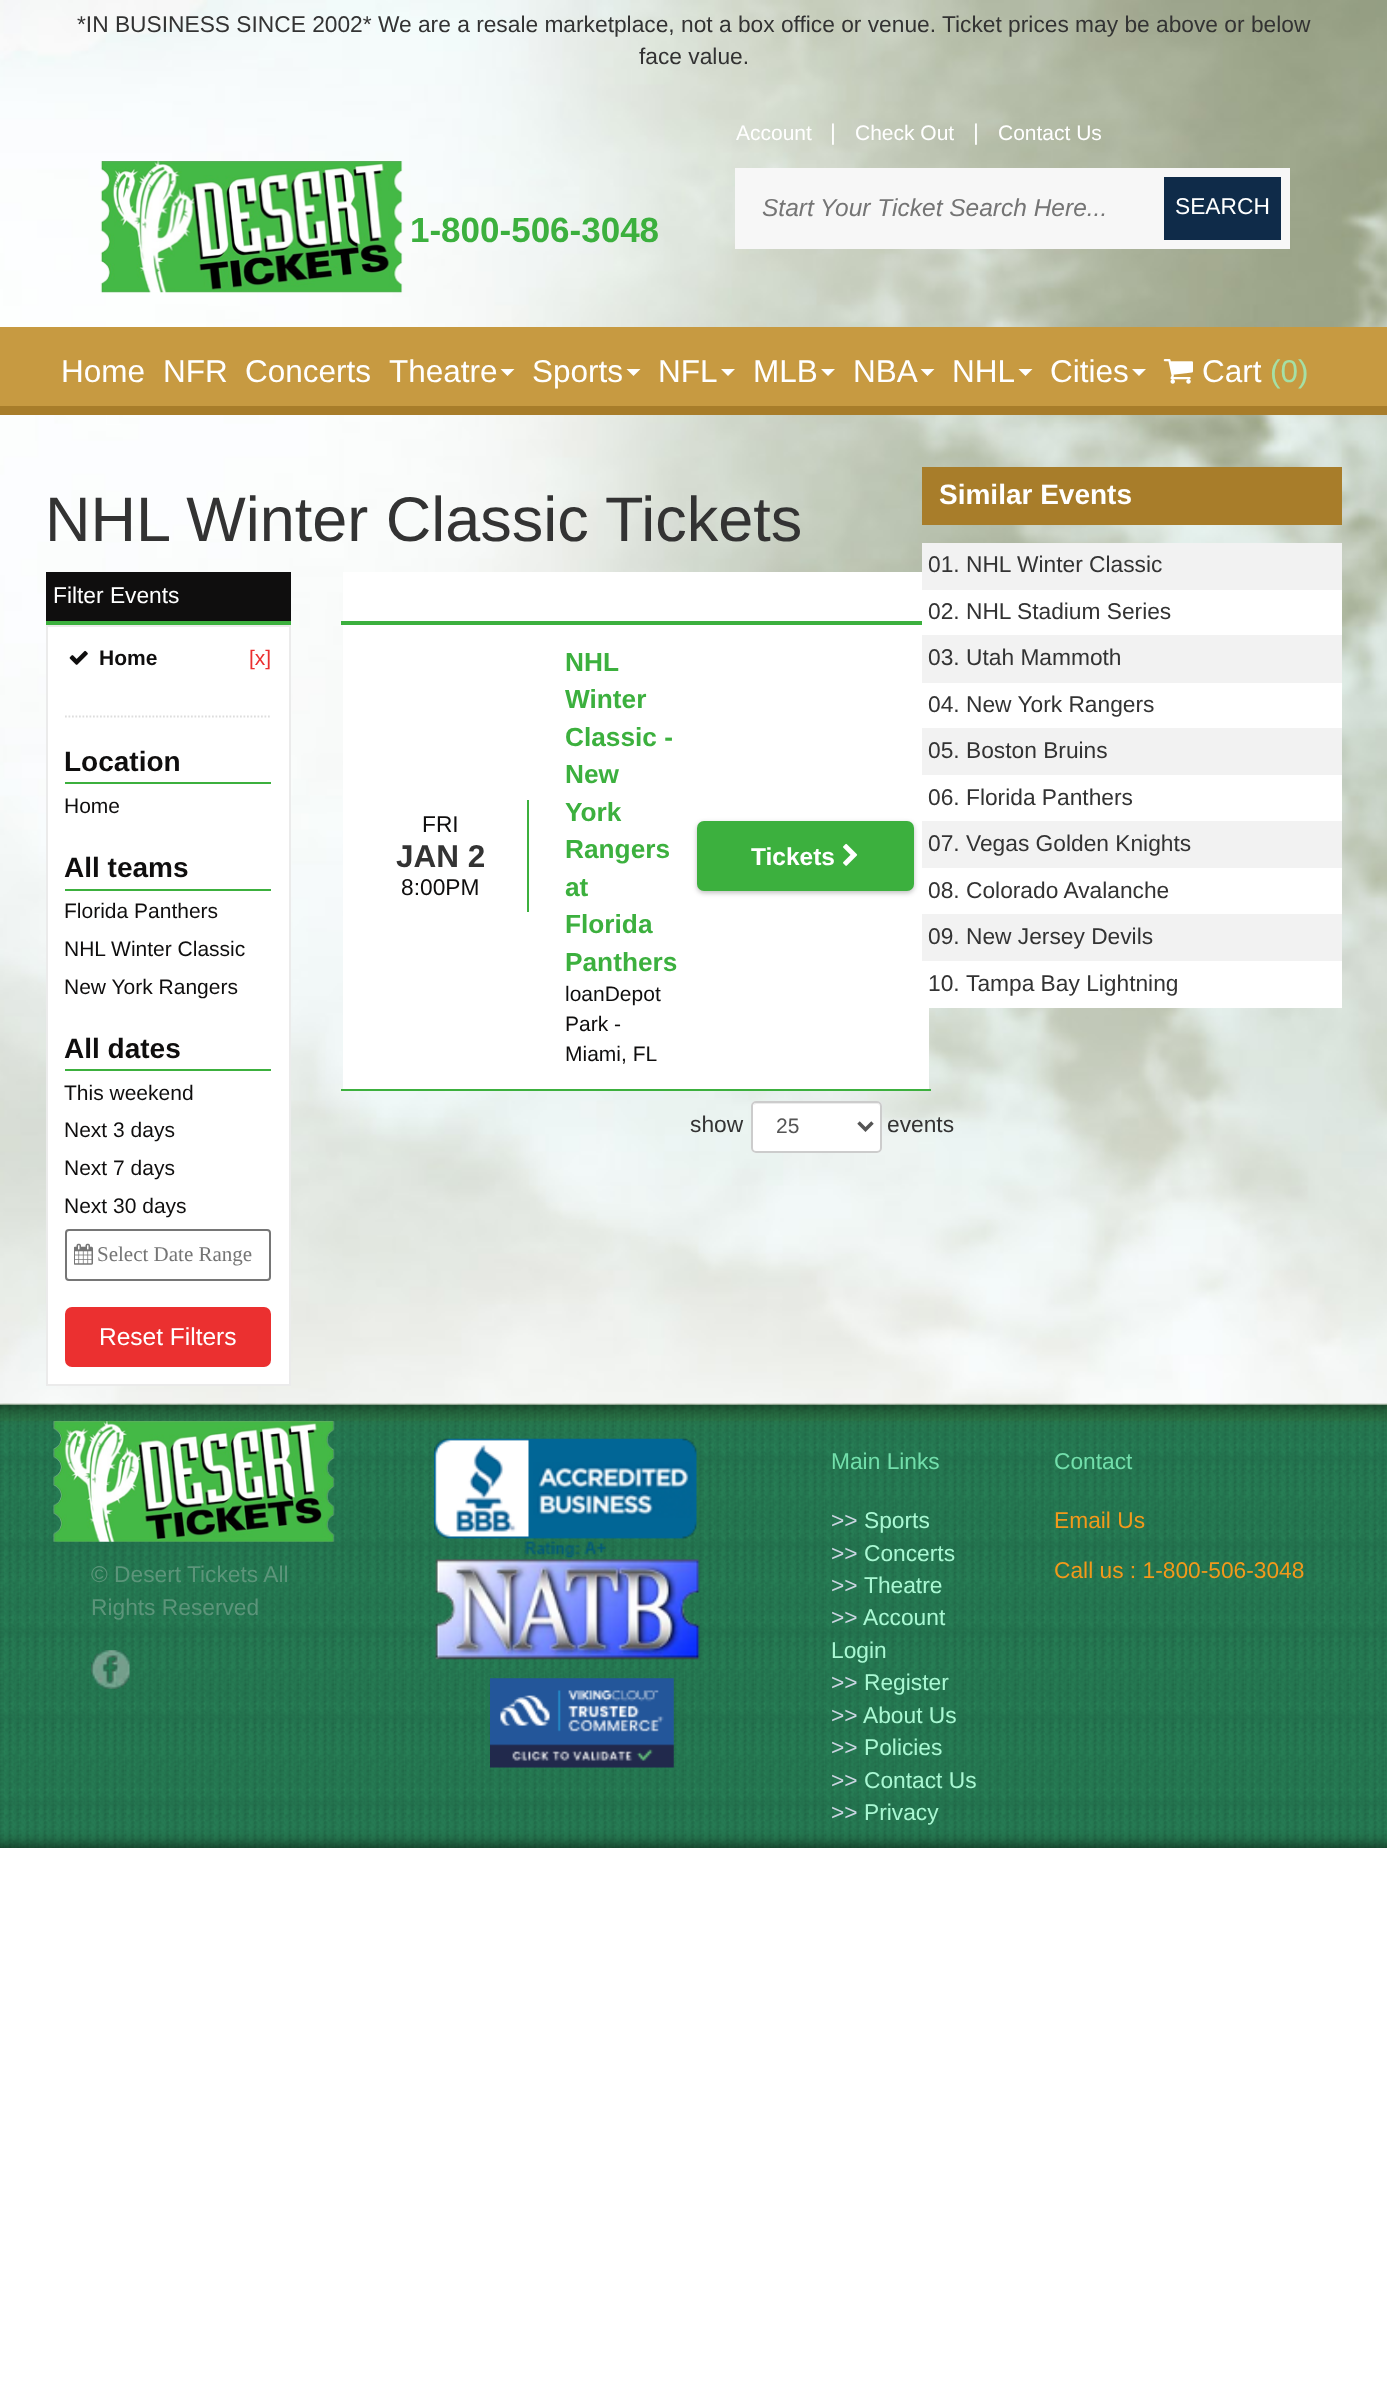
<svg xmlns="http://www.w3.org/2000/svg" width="1387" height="2384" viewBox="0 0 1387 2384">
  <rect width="100%" height="100%" fill="rgb(255,255,255)"/>
  <image x="0" y="0" width="1387" height="1404" href="pic1.png"/>
  <g font-family="Liberation Sans" font-size="22.75" fill="rgb(51,51,51)">
    <text x="77" y="32">*IN BUSINESS SINCE 2002* We are a resale marketplace, not a box office or venue. Ticket prices may be above or below</text>
    <text x="639" y="64">face value.</text>
  </g>
  <text x="736" y="140" font-family="Liberation Sans" font-size="21" fill="rgb(255,255,255)">Account</text>
  <text x="830" y="140" font-family="Liberation Sans" font-size="22.75" fill="rgb(255,255,255)">|</text>
  <text x="855" y="140" font-family="Liberation Sans" font-size="21" fill="rgb(255,255,255)">Check Out</text>
  <text x="973" y="140" font-family="Liberation Sans" font-size="22.75" fill="rgb(255,255,255)">|</text>
  <text x="998" y="140" font-family="Liberation Sans" font-size="21" fill="rgb(255,255,255)">Contact Us</text>
  <rect x="735" y="168" width="420" height="81" fill="rgb(247,247,247)"/>
  <text x="762" y="216" font-family="Liberation Sans" font-size="24.5" font-style="italic" fill="rgb(117,117,117)">Start Your Ticket Search Here...</text>
  <rect x="1159.5" y="172.5" width="126" height="72" fill="rgb(15,43,73)" stroke="rgb(247,247,247)" stroke-width="9"/>
  <text x="1175" y="214" font-family="Liberation Sans" font-size="22.75" fill="rgb(255,255,255)">SEARCH</text>
  <image x="100" y="161" width="303" height="132" href="pic2.png"/>
  <text x="410" y="242" font-family="Liberation Sans" font-size="35" font-weight="bold" fill="rgb(60,176,62)">1-800-506-3048</text>
  <rect x="0" y="327" width="1387" height="79" fill="rgb(199,154,65)"/>
  <rect x="0" y="406" width="1387" height="9" fill="rgb(168,125,42)"/>
  <g font-family="Liberation Sans" font-size="31.5" fill="rgb(255,255,255)">
    <text x="61" y="382">Home</text>
    <text x="163" y="382">NFR</text>
    <text x="245" y="382">Concerts</text>
    <text x="389" y="382">Theatre</text>
  </g>
  <path d="M500.5 369H514.5L507.5 376Z" fill="rgb(255,255,255)"/>
  <text x="532" y="382" font-family="Liberation Sans" font-size="31.5" fill="rgb(255,255,255)">Sports</text>
  <path d="M626.5 369H640.5L633.5 376Z" fill="rgb(255,255,255)"/>
  <text x="658" y="382" font-family="Liberation Sans" font-size="31.5" fill="rgb(255,255,255)">NFL</text>
  <path d="M721 369H735L728 376Z" fill="rgb(255,255,255)"/>
  <text x="753" y="382" font-family="Liberation Sans" font-size="31.5" fill="rgb(255,255,255)">MLB</text>
  <path d="M821 369H835L828 376Z" fill="rgb(255,255,255)"/>
  <text x="853" y="382" font-family="Liberation Sans" font-size="31.5" fill="rgb(255,255,255)">NBA</text>
  <path d="M920.5 369H934.5L927.5 376Z" fill="rgb(255,255,255)"/>
  <text x="952" y="382" font-family="Liberation Sans" font-size="31.5" fill="rgb(255,255,255)">NHL</text>
  <path d="M1018.5 369H1032.5L1025.5 376Z" fill="rgb(255,255,255)"/>
  <text x="1050" y="382" font-family="Liberation Sans" font-size="31.5" fill="rgb(255,255,255)">Cities</text>
  <path d="M1132 369H1146L1139 376Z" fill="rgb(255,255,255)"/>
  <image x="1163" y="359" width="30" height="25" href="pic3.png"/>
  <text x="1202" y="382" font-family="Liberation Sans" font-size="31.5" fill="rgb(255,255,255)">Cart</text>
  <text x="1270" y="382" font-family="Liberation Sans" font-size="31.5" fill="rgb(165,224,166)">(0)</text>
  <text x="45" y="541" font-family="Liberation Sans" font-size="63" fill="rgb(51,51,51)">NHL Winter Classic Tickets</text>
  <rect x="46" y="572" width="245" height="49" fill="rgb(15,14,14)"/>
  <rect x="46" y="621" width="245" height="4" fill="rgb(60,176,62)"/>
  <text x="53" y="603" font-family="Liberation Sans" font-size="22.75" fill="rgb(255,255,255)">Filter Events</text>
  <rect x="47" y="626" width="243" height="759" fill="rgb(255,255,255)" stroke="rgb(235,235,235)" stroke-width="2"/>
  <path d="M65 716.5H271" fill="none" stroke="rgb(221,221,221)" stroke-width="1.8" stroke-dasharray="1.75 1.75"/>
  <image x="69" y="650" width="19" height="15" href="pic4.png"/>
  <text x="99" y="665" font-family="Liberation Sans" font-size="21" font-weight="bold" fill="rgb(15,14,14)">Home</text>
  <text x="249" y="665" font-family="Liberation Sans" font-size="21" fill="rgb(235,48,48)">[x]</text>
  <rect x="65" y="782" width="206" height="2" fill="rgb(60,176,62)"/>
  <text x="64" y="771" font-family="Liberation Sans" font-size="28" font-weight="bold" fill="rgb(15,14,14)">Location</text>
  <text x="64" y="813" font-family="Liberation Sans" font-size="21" fill="rgb(15,14,14)">Home</text>
  <rect x="65" y="889" width="206" height="2" fill="rgb(60,176,62)"/>
  <text x="64" y="877" font-family="Liberation Sans" font-size="28" font-weight="bold" fill="rgb(15,14,14)">All teams</text>
  <g font-family="Liberation Sans" font-size="21" fill="rgb(15,14,14)">
    <text>
      <tspan x="64" y="918">Florida Panthers</tspan>
      <tspan x="64" y="956">NHL Winter Classic</tspan>
      <tspan x="64" y="994">New York Rangers</tspan>
    </text>
  </g>
  <rect x="65" y="1069" width="206" height="2" fill="rgb(60,176,62)"/>
  <text x="64" y="1058" font-family="Liberation Sans" font-size="28" font-weight="bold" fill="rgb(15,14,14)">All dates</text>
  <g font-family="Liberation Sans" font-size="21" fill="rgb(15,14,14)">
    <text>
      <tspan x="64" y="1100">This weekend</tspan>
      <tspan x="64" y="1137">Next 3 days</tspan>
      <tspan x="64" y="1175">Next 7 days</tspan>
      <tspan x="64" y="1213">Next 30 days</tspan>
    </text>
  </g>
  <rect x="66" y="1230" width="204" height="50" rx="3" fill="none" stroke="rgb(118,118,118)" stroke-width="2"/>
  <image x="74" y="1243" width="19" height="22" href="pic5.png"/>
  <text x="97" y="1261" font-family="Liberation Serif" font-size="21" fill="rgb(117,117,117)">Select Date Range</text>
  <rect x="66" y="1308" width="204" height="58" rx="6" fill="rgb(235,48,48)" stroke="rgb(235,48,48)" stroke-width="2"/>
  <text x="99" y="1345" font-family="Liberation Sans" font-size="24.5" fill="rgb(255,255,255)">Reset Filters</text>
  <rect x="343" y="625" width="586" height="464" fill="rgb(255,255,255)"/>
  <rect x="341" y="621" width="581" height="4" fill="rgb(60,176,62)"/>
  <rect x="343" y="572" width="579" height="49" fill="rgb(255,255,255)"/>
  <rect x="527" y="800" width="2" height="112" fill="rgb(60,176,62)"/>
  <text x="422" y="832" font-family="Liberation Sans" font-size="22.75" fill="rgb(15,14,14)">FRI</text>
  <text x="396" y="867" font-family="Liberation Sans" font-size="31.5" font-weight="bold" fill="rgb(51,51,51)">JAN 2</text>
  <text x="401" y="895" font-family="Liberation Sans" font-size="22.75" fill="rgb(15,14,14)">8:00PM</text>
  <g font-family="Liberation Sans" font-size="26.25" font-weight="bold" fill="rgb(60,176,62)">
    <text>
      <tspan x="565" y="671">NHL</tspan>
      <tspan x="565" y="708">Winter</tspan>
      <tspan x="565" y="746">Classic -</tspan>
      <tspan x="565" y="783">New</tspan>
      <tspan x="565" y="821">York</tspan>
      <tspan x="565" y="858">Rangers</tspan>
      <tspan x="565" y="896">at</tspan>
      <tspan x="565" y="933">Florida</tspan>
      <tspan x="565" y="971">Panthers</tspan>
    </text>
  </g>
  <g font-family="Liberation Sans" font-size="21" fill="rgb(15,14,14)">
    <text>
      <tspan x="565" y="1001">loanDepot</tspan>
      <tspan x="565" y="1031">Park -</tspan>
      <tspan x="565" y="1061">Miami, FL</tspan>
    </text>
  </g>
  <rect x="341" y="1089" width="590" height="2" fill="rgb(60,176,62)"/>
  <rect x="697" y="823" width="217" height="70" rx="7" fill="rgba(0,0,0,0.25)" filter="blur(2.5px)"/>
  <rect x="697" y="821" width="217" height="70" rx="7" fill="rgb(60,176,62)"/>
  <text x="751" y="865" font-family="Liberation Sans" font-size="24.5" font-weight="bold" fill="rgb(255,255,255)">Tickets</text>
  <image x="843" y="843" width="15" height="23" href="pic6.png"/>
  <text x="690" y="1132" font-family="Liberation Sans" font-size="22.75" fill="rgb(51,51,51)">show</text>
  <rect x="751" y="1101" width="131" height="52" rx="5" fill="rgb(255,255,255)"/>
  <path d="M756 1104H877C879 1104 880 1106 880 1108C880 1105 879 1103 876 1103H756C755 1103 754 1104 754 1105Z" fill="rgb(236,236,236)"/>
  <rect x="752" y="1102" width="129" height="50" rx="4" fill="none" stroke="rgb(204,204,204)" stroke-width="2"/>
  <path d="M858.5 1122.5L865.5 1129.5L872.5 1122.5" fill="none" stroke="rgb(85,85,85)" stroke-width="3.5"/>
  <text x="776" y="1133" font-family="Liberation Sans" font-size="21" fill="rgb(85,85,85)">25</text>
  <text x="887" y="1132" font-family="Liberation Sans" font-size="22.75" fill="rgb(51,51,51)">events</text>
  <rect x="922" y="467" width="420" height="58" fill="rgb(168,125,42)"/>
  <text x="939" y="504" font-family="Liberation Sans" font-size="28" font-weight="bold" fill="rgb(255,255,255)">Similar Events</text>
  <rect x="922" y="543" width="420" height="47" fill="rgb(242,242,242)"/>
  <g font-family="Liberation Sans" font-size="22.75" fill="rgb(51,51,51)">
    <text x="928" y="572">01.</text>
    <text x="966" y="572">NHL Winter Classic</text>
  </g>
  <rect x="922" y="590" width="420" height="45" fill="rgb(255,255,255)"/>
  <g font-family="Liberation Sans" font-size="22.75" fill="rgb(51,51,51)">
    <text x="928" y="619">02.</text>
    <text x="966" y="619">NHL Stadium Series</text>
  </g>
  <rect x="922" y="635" width="420" height="48" fill="rgb(242,242,242)"/>
  <g font-family="Liberation Sans" font-size="22.75" fill="rgb(51,51,51)">
    <text x="928" y="665">03.</text>
    <text x="966" y="665">Utah Mammoth</text>
  </g>
  <rect x="929" y="683" width="413" height="45" fill="rgb(255,255,255)"/>
  <g font-family="Liberation Sans" font-size="22.75" fill="rgb(51,51,51)">
    <text x="928" y="712">04.</text>
    <text x="966" y="712">New York Rangers</text>
  </g>
  <rect x="922" y="728" width="420" height="47" fill="rgb(242,242,242)"/>
  <g font-family="Liberation Sans" font-size="22.75" fill="rgb(51,51,51)">
    <text x="928" y="758">05.</text>
    <text x="966" y="758">Boston Bruins</text>
  </g>
  <rect x="929" y="775" width="413" height="46" fill="rgb(255,255,255)"/>
  <g font-family="Liberation Sans" font-size="22.75" fill="rgb(51,51,51)">
    <text x="928" y="805">06.</text>
    <text x="966" y="805">Florida Panthers</text>
  </g>
  <rect x="922" y="821" width="420" height="47" fill="rgb(242,242,242)"/>
  <g font-family="Liberation Sans" font-size="22.75" fill="rgb(51,51,51)">
    <text x="928" y="851">07.</text>
    <text x="966" y="851">Vegas Golden Knights</text>
  </g>
  <rect x="929" y="868" width="413" height="46" fill="rgb(255,255,255)"/>
  <g font-family="Liberation Sans" font-size="22.75" fill="rgb(51,51,51)">
    <text x="928" y="898">08.</text>
    <text x="966" y="898">Colorado Avalanche</text>
  </g>
  <rect x="922" y="914" width="420" height="47" fill="rgb(242,242,242)"/>
  <g font-family="Liberation Sans" font-size="22.75" fill="rgb(51,51,51)">
    <text x="928" y="944">09.</text>
    <text x="966" y="944">New Jersey Devils</text>
  </g>
  <rect x="929" y="961" width="413" height="47" fill="rgb(255,255,255)"/>
  <g font-family="Liberation Sans" font-size="22.75" fill="rgb(51,51,51)">
    <text x="928" y="991">10.</text>
    <text x="966" y="991">Tampa Bay Lightning</text>
  </g>
  <image x="0" y="1403" width="1387" height="445" href="pic7.png"/>
  <image x="434" y="1438" width="263" height="120" href="pic8.png"/>
  <image x="435" y="1559" width="265" height="101" href="pic9.png"/>
  <image x="490" y="1678" width="184" height="90" href="pic10.png"/>
  <text x="831" y="1469" font-family="Liberation Sans" font-size="22.75" fill="rgb(114,223,171)">Main Links</text>
  <text x="831" y="1528" font-family="Liberation Sans" font-size="22.75" fill="rgb(202,213,225)">&gt;&gt;</text>
  <text x="864" y="1528" font-family="Liberation Sans" font-size="22.75" fill="rgb(169,248,211)">Sports</text>
  <text x="831" y="1561" font-family="Liberation Sans" font-size="22.75" fill="rgb(202,213,225)">&gt;&gt;</text>
  <text x="864" y="1561" font-family="Liberation Sans" font-size="22.75" fill="rgb(169,248,211)">Concerts</text>
  <text x="831" y="1593" font-family="Liberation Sans" font-size="22.75" fill="rgb(202,213,225)">&gt;&gt;</text>
  <text x="864" y="1593" font-family="Liberation Sans" font-size="22.75" fill="rgb(169,248,211)">Theatre</text>
  <text x="831" y="1625" font-family="Liberation Sans" font-size="22.75" fill="rgb(202,213,225)">&gt;&gt;</text>
  <g font-family="Liberation Sans" font-size="22.75" fill="rgb(169,248,211)">
    <text x="863" y="1625">Account</text>
    <text x="831" y="1658">Login</text>
  </g>
  <text x="831" y="1690" font-family="Liberation Sans" font-size="22.75" fill="rgb(202,213,225)">&gt;&gt;</text>
  <text x="864" y="1690" font-family="Liberation Sans" font-size="22.75" fill="rgb(169,248,211)">Register</text>
  <text x="831" y="1723" font-family="Liberation Sans" font-size="22.75" fill="rgb(202,213,225)">&gt;&gt;</text>
  <text x="863" y="1723" font-family="Liberation Sans" font-size="22.75" fill="rgb(169,248,211)">About Us</text>
  <text x="831" y="1755" font-family="Liberation Sans" font-size="22.75" fill="rgb(202,213,225)">&gt;&gt;</text>
  <text x="864" y="1755" font-family="Liberation Sans" font-size="22.75" fill="rgb(169,248,211)">Policies</text>
  <text x="831" y="1788" font-family="Liberation Sans" font-size="22.75" fill="rgb(202,213,225)">&gt;&gt;</text>
  <text x="864" y="1788" font-family="Liberation Sans" font-size="22.75" fill="rgb(169,248,211)">Contact Us</text>
  <text x="831" y="1820" font-family="Liberation Sans" font-size="22.75" fill="rgb(202,213,225)">&gt;&gt;</text>
  <text x="864" y="1820" font-family="Liberation Sans" font-size="22.75" fill="rgb(169,248,211)">Privacy</text>
  <text x="1054" y="1469" font-family="Liberation Sans" font-size="22.75" fill="rgb(114,223,171)">Contact</text>
  <g font-family="Liberation Sans" font-size="22.75" fill="rgb(242,153,27)">
    <text x="1054" y="1528">Email Us</text>
    <text x="1054" y="1578">Call us : 1-800-506-3048</text>
  </g>
  <image x="53" y="1421" width="282" height="121" href="pic11.png"/>
  <g font-family="Liberation Sans" font-size="22.75" fill="rgb(92,149,122)">
    <text>
      <tspan x="91" y="1582">© Desert Tickets All</tspan>
      <tspan x="91" y="1615">Rights Reserved</tspan>
    </text>
  </g>
  <image x="91" y="1650" width="39" height="39" href="pic12.png"/>
</svg>
